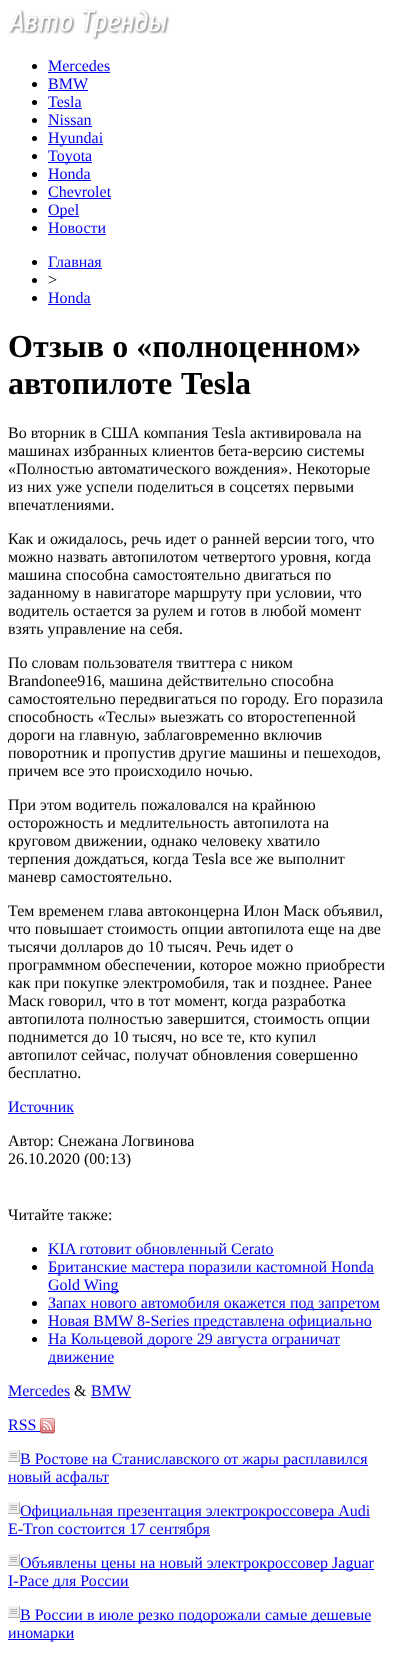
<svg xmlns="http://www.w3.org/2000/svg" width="394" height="1666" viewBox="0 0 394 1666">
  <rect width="100%" height="100%" fill="rgb(255,255,255)"/>
  <image x="8" y="9" width="162" height="31" href="pic1.png"/>
  <circle cx="34.5" cy="66.5" r="2.5" fill="rgb(0,0,0)"/>
  <text x="48" y="71" font-family="Liberation Serif" font-size="16" fill="rgb(0,0,238)">Mercedes</text>
  <rect x="48" y="72" width="62" height="1" fill="rgb(0,0,238)"/>
  <circle cx="34.5" cy="84.5" r="2.5" fill="rgb(0,0,0)"/>
  <text x="48" y="89" font-family="Liberation Serif" font-size="16" fill="rgb(0,0,238)">BMW</text>
  <rect x="48" y="90" width="40" height="1" fill="rgb(0,0,238)"/>
  <circle cx="34.5" cy="102.5" r="2.5" fill="rgb(0,0,0)"/>
  <text x="48" y="107" font-family="Liberation Serif" font-size="16" fill="rgb(0,0,238)">Tesla</text>
  <rect x="48" y="108" width="34" height="1" fill="rgb(0,0,238)"/>
  <circle cx="34.5" cy="120.5" r="2.5" fill="rgb(0,0,0)"/>
  <text x="48" y="125" font-family="Liberation Serif" font-size="16" fill="rgb(0,0,238)">Nissan</text>
  <rect x="48" y="126" width="44" height="1" fill="rgb(0,0,238)"/>
  <circle cx="34.5" cy="138.5" r="2.5" fill="rgb(0,0,0)"/>
  <rect x="48" y="144" width="55" height="1" fill="rgb(0,0,238)"/>
  <text x="48" y="143" font-family="Liberation Serif" font-size="16" fill="rgb(0,0,238)">Hyundai</text>
  <circle cx="34.5" cy="156.5" r="2.5" fill="rgb(0,0,0)"/>
  <rect x="48" y="162" width="44" height="1" fill="rgb(0,0,238)"/>
  <text x="48" y="161" font-family="Liberation Serif" font-size="16" fill="rgb(0,0,238)">Toyota</text>
  <circle cx="34.5" cy="174.5" r="2.5" fill="rgb(0,0,0)"/>
  <text x="48" y="179" font-family="Liberation Serif" font-size="16" fill="rgb(0,0,238)">Honda</text>
  <rect x="48" y="180" width="43" height="1" fill="rgb(0,0,238)"/>
  <circle cx="34.5" cy="192.5" r="2.5" fill="rgb(0,0,0)"/>
  <text x="48" y="197" font-family="Liberation Serif" font-size="16" fill="rgb(0,0,238)">Chevrolet</text>
  <rect x="48" y="198" width="63" height="1" fill="rgb(0,0,238)"/>
  <circle cx="34.5" cy="210.5" r="2.5" fill="rgb(0,0,0)"/>
  <rect x="48" y="216" width="31" height="1" fill="rgb(0,0,238)"/>
  <text x="48" y="215" font-family="Liberation Serif" font-size="16" fill="rgb(0,0,238)">Opel</text>
  <circle cx="34.5" cy="228.5" r="2.5" fill="rgb(0,0,0)"/>
  <text x="48" y="233" font-family="Liberation Serif" font-size="16" fill="rgb(0,0,238)">Новости</text>
  <rect x="48" y="234" width="58" height="1" fill="rgb(0,0,238)"/>
  <circle cx="34.5" cy="262.5" r="2.5" fill="rgb(0,0,0)"/>
  <text x="48" y="267" font-family="Liberation Serif" font-size="16" fill="rgb(0,0,238)">Главная</text>
  <rect x="48" y="268" width="54" height="1" fill="rgb(0,0,238)"/>
  <circle cx="34.5" cy="280.5" r="2.5" fill="rgb(0,0,0)"/>
  <text x="48" y="285" font-family="Liberation Serif" font-size="16" fill="rgb(0,0,0)">&gt;</text>
  <circle cx="34.5" cy="298.5" r="2.5" fill="rgb(0,0,0)"/>
  <text x="48" y="303" font-family="Liberation Serif" font-size="16" fill="rgb(0,0,238)">Honda</text>
  <rect x="48" y="304" width="43" height="1" fill="rgb(0,0,238)"/>
  <g font-family="Liberation Serif" font-size="32" font-weight="bold" fill="rgb(0,0,0)">
    <text>
      <tspan x="8" y="357">Отзыв о «полноценном»</tspan>
      <tspan x="8" y="394" word-spacing="1">автопилоте Tesla</tspan>
    </text>
  </g>
  <g font-family="Liberation Serif" font-size="16" fill="rgb(0,0,0)">
    <text>
      <tspan x="8" y="438">Во вторник в США компания Tesla активировала на</tspan>
      <tspan x="8" y="456">машинах избранных клиентов бета-версию системы</tspan>
      <tspan x="8" y="474">«Полностью автоматического вождения». Некоторые</tspan>
      <tspan x="8" y="492">из них уже успели поделиться в соцсетях первыми</tspan>
      <tspan x="8" y="510">впечатлениями.</tspan>
    </text>
    <text>
      <tspan x="8" y="544">Как и ожидалось, речь идет о ранней версии того, что</tspan>
      <tspan x="8" y="562">можно назвать автопилотом четвертого уровня, когда</tspan>
      <tspan x="8" y="580">машина способна самостоятельно двигаться по</tspan>
      <tspan x="8" y="598">заданному в навигаторе маршруту при условии, что</tspan>
      <tspan x="8" y="616">водитель остается за рулем и готов в любой момент</tspan>
      <tspan x="8" y="634">взять управление на себя.</tspan>
    </text>
    <text>
      <tspan x="8" y="668">По словам пользователя твиттера с ником</tspan>
      <tspan x="8" y="686">Brandonee916, машина действительно способна</tspan>
      <tspan x="8" y="704">самостоятельно передвигаться по городу. Его поразила</tspan>
      <tspan x="8" y="722">способность «Теслы» выезжать со второстепенной</tspan>
      <tspan x="8" y="740">дороги на главную, заблаговременно включив</tspan>
      <tspan x="8" y="758">поворотник и пропустив другие машины и пешеходов,</tspan>
      <tspan x="8" y="776">причем все это происходило ночью.</tspan>
    </text>
    <text>
      <tspan x="8" y="810">При этом водитель пожаловался на крайнюю</tspan>
      <tspan x="8" y="828">осторожность и медлительность автопилота на</tspan>
      <tspan x="8" y="846">круговом движении, однако человеку хватило</tspan>
      <tspan x="8" y="864">терпения дождаться, когда Tesla все же выполнит</tspan>
      <tspan x="8" y="882">маневр самостоятельно.</tspan>
    </text>
    <text>
      <tspan x="8" y="916">Тем временем глава автоконцерна Илон Маск объявил,</tspan>
      <tspan x="8" y="934">что повышает стоимость опции автопилота еще на две</tspan>
      <tspan x="8" y="952">тысячи долларов до 10 тысяч. Речь идет о</tspan>
      <tspan x="8" y="970">программном обеспечении, которое можно приобрести</tspan>
      <tspan x="8" y="988">как при покупке электромобиля, так и позднее. Ранее</tspan>
      <tspan x="8" y="1006">Маск говорил, что в тот момент, когда разработка</tspan>
      <tspan x="8" y="1024">автопилота полностью завершится, стоимость опции</tspan>
      <tspan x="8" y="1042">поднимется до 10 тысяч, но все те, кто купил</tspan>
      <tspan x="8" y="1060">автопилот сейчас, получат обновления совершенно</tspan>
      <tspan x="8" y="1078">бесплатно.</tspan>
    </text>
  </g>
  <text x="8" y="1112" font-family="Liberation Serif" font-size="16" fill="rgb(0,0,238)">Источник</text>
  <rect x="8" y="1113" width="66" height="1" fill="rgb(0,0,238)"/>
  <g font-family="Liberation Serif" font-size="16" fill="rgb(0,0,0)">
    <text>
      <tspan x="8" y="1146">Автор: Снежана Логвинова</tspan>
      <tspan x="8" y="1164">26.10.2020 (00:13)</tspan>
    </text>
    <text x="8" y="1220">Читайте также:</text>
  </g>
  <circle cx="34.5" cy="1249.5" r="2.5" fill="rgb(0,0,0)"/>
  <text x="48" y="1254" font-family="Liberation Serif" font-size="16" fill="rgb(0,0,238)">KIA готовит обновленный Cerato</text>
  <rect x="48" y="1255" width="226" height="1" fill="rgb(0,0,238)"/>
  <circle cx="34.5" cy="1267.5" r="2.5" fill="rgb(0,0,0)"/>
  <rect x="48" y="1273" width="326" height="1" fill="rgb(0,0,238)"/>
  <text x="48" y="1272" font-family="Liberation Serif" font-size="16" fill="rgb(0,0,238)">Британские мастера поразили кастомной Honda</text>
  <rect x="48" y="1291" width="71" height="1" fill="rgb(0,0,238)"/>
  <text x="48" y="1290" font-family="Liberation Serif" font-size="16" fill="rgb(0,0,238)">Gold Wing</text>
  <circle cx="34.5" cy="1303.5" r="2.5" fill="rgb(0,0,0)"/>
  <rect x="48" y="1309" width="332" height="1" fill="rgb(0,0,238)"/>
  <text x="48" y="1308" font-family="Liberation Serif" font-size="16" fill="rgb(0,0,238)">Запах нового автомобиля окажется под запретом</text>
  <circle cx="34.5" cy="1321.5" r="2.5" fill="rgb(0,0,0)"/>
  <rect x="48" y="1327" width="324" height="1" fill="rgb(0,0,238)"/>
  <text x="48" y="1326" font-family="Liberation Serif" font-size="16" fill="rgb(0,0,238)">Новая BMW 8-Series представлена официально</text>
  <circle cx="34.5" cy="1339.5" r="2.5" fill="rgb(0,0,0)"/>
  <rect x="48" y="1345" width="292" height="1" fill="rgb(0,0,238)"/>
  <text x="48" y="1344" font-family="Liberation Serif" font-size="16" fill="rgb(0,0,238)">На Кольцевой дороге 29 августа ограничат</text>
  <rect x="48" y="1363" width="66" height="1" fill="rgb(0,0,238)"/>
  <g font-family="Liberation Serif" font-size="16" fill="rgb(0,0,238)">
    <text x="48" y="1362">движение</text>
    <text x="8" y="1396">Mercedes</text>
  </g>
  <rect x="8" y="1397" width="62" height="1" fill="rgb(0,0,238)"/>
  <text x="74" y="1396" font-family="Liberation Serif" font-size="16" fill="rgb(0,0,0)">&amp;</text>
  <text x="91" y="1396" font-family="Liberation Serif" font-size="16" fill="rgb(0,0,238)">BMW</text>
  <rect x="91" y="1397" width="40" height="1" fill="rgb(0,0,238)"/>
  <text x="8" y="1430" font-family="Liberation Serif" font-size="16" fill="rgb(0,0,238)">RSS</text>
  <rect x="8" y="1431" width="32" height="1" fill="rgb(0,0,238)"/>
  <image x="40" y="1418" width="15" height="16" href="pic2.png"/>
  <image x="8" y="1450" width="12" height="12" href="pic3.png"/>
  <rect x="20" y="1465" width="348" height="1" fill="rgb(0,0,238)"/>
  <text x="20" y="1464" font-family="Liberation Serif" font-size="16" fill="rgb(0,0,238)">В Ростове на Станиславского от жары расплавился</text>
  <rect x="8" y="1483" width="101" height="1" fill="rgb(0,0,238)"/>
  <text x="8" y="1482" font-family="Liberation Serif" font-size="16" fill="rgb(0,0,238)">новый асфальт</text>
  <image x="8" y="1502" width="12" height="12" href="pic3.png"/>
  <rect x="20" y="1517" width="350" height="1" fill="rgb(0,0,238)"/>
  <text x="20" y="1516" font-family="Liberation Serif" font-size="16" fill="rgb(0,0,238)">Официальная презентация электрокроссовера Audi</text>
  <rect x="8" y="1535" width="202" height="1" fill="rgb(0,0,238)"/>
  <text x="8" y="1534" font-family="Liberation Serif" font-size="16" fill="rgb(0,0,238)">E-Tron состоится 17 сентября</text>
  <image x="8" y="1554" width="12" height="12" href="pic3.png"/>
  <rect x="20" y="1569" width="354" height="1" fill="rgb(0,0,238)"/>
  <text x="20" y="1568" font-family="Liberation Serif" font-size="16" fill="rgb(0,0,238)">Объявлены цены на новый электрокроссовер Jaguar</text>
  <rect x="8" y="1587" width="121" height="1" fill="rgb(0,0,238)"/>
  <text x="8" y="1586" font-family="Liberation Serif" font-size="16" fill="rgb(0,0,238)">I-Pace для России</text>
  <image x="8" y="1606" width="12" height="12" href="pic3.png"/>
  <rect x="20" y="1621" width="351" height="1" fill="rgb(0,0,238)"/>
  <text x="20" y="1620" font-family="Liberation Serif" font-size="16" fill="rgb(0,0,238)">В России в июле резко подорожали самые дешевые</text>
  <rect x="8" y="1639" width="66" height="1" fill="rgb(0,0,238)"/>
  <text x="8" y="1638" font-family="Liberation Serif" font-size="16" fill="rgb(0,0,238)">иномарки</text>
</svg>
